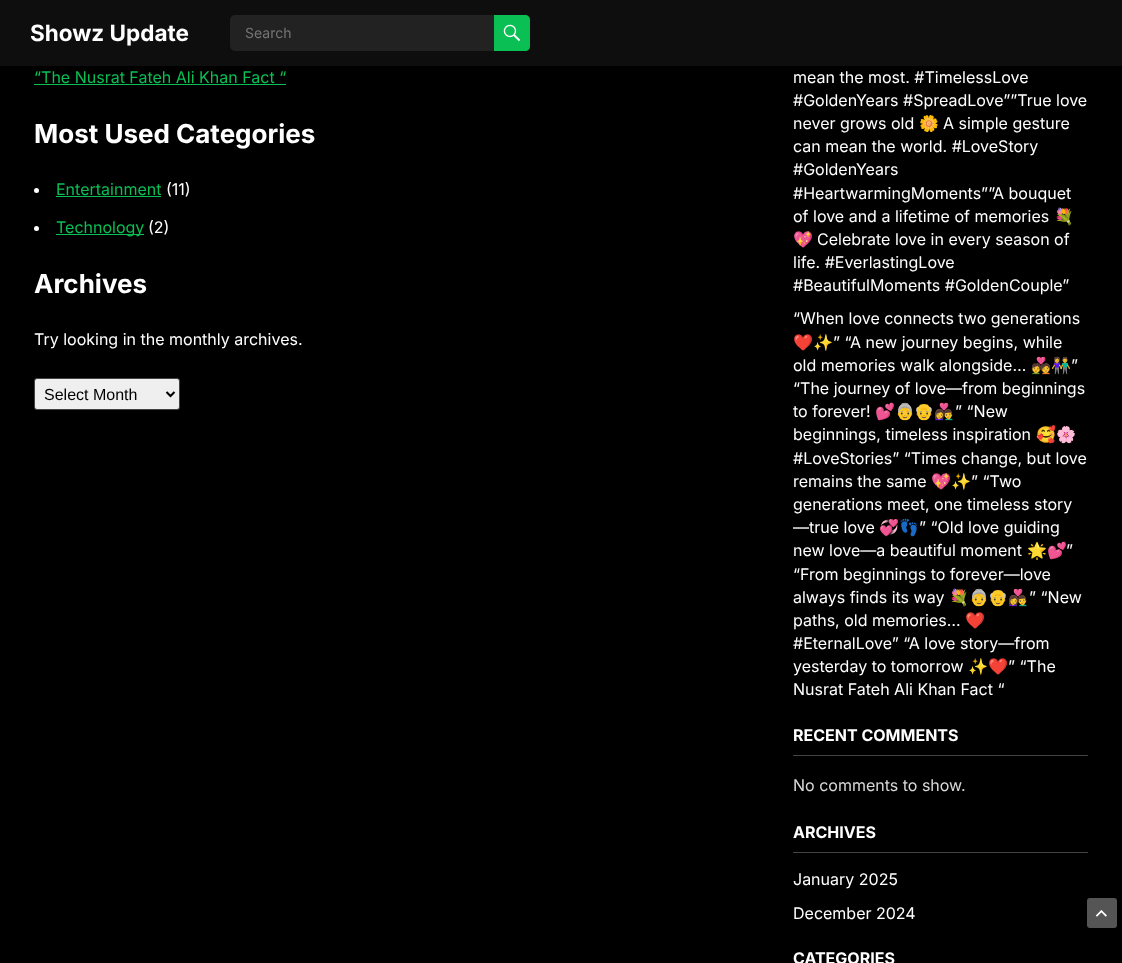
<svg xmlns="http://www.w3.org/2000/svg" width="1122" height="963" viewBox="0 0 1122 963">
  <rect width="100%" height="100%" fill="rgb(0,0,0)"/>
  <rect x="0" y="0" width="1122" height="66" fill="rgb(14,14,14)"/>
  <text x="30" y="41" font-family="Inter" font-size="22.5" font-weight="bold" fill="rgb(255,255,255)">Showz Update</text>
  <rect x="230" y="15" width="300" height="36" rx="5" fill="rgb(34,34,34)"/>
  <text x="245" y="38" font-family="Inter" font-size="14" fill="rgb(117,117,117)">Search</text>
  <path d="M494 15H525C528 15 530 17 530 20V46C530 49 528 51 525 51H494Z" fill="rgb(10,191,83)"/>
  <image x="503" y="24" width="18" height="18" href="pic1.png"/>
  <text x="34" y="83" font-family="Inter" font-size="16" fill="rgb(10,191,83)">“The Nusrat Fateh Ali Khan Fact “</text>
  <rect x="34" y="84" width="252" height="1" fill="rgb(10,191,83)"/>
  <text x="34" y="143" font-family="Inter" font-size="26" font-weight="bold" fill="rgb(255,255,255)">Most Used Categories</text>
  <circle cx="36.5" cy="190.5" r="2.5" fill="rgb(255,255,255)"/>
  <text x="56" y="195" font-family="Inter" font-size="16" fill="rgb(10,191,83)">Entertainment</text>
  <rect x="56" y="196" width="105" height="1" fill="rgb(10,191,83)"/>
  <text x="166" y="195" font-family="Inter" font-size="16" fill="rgb(255,255,255)">(11)</text>
  <circle cx="36.5" cy="228.5" r="2.5" fill="rgb(255,255,255)"/>
  <rect x="56" y="234" width="88" height="1" fill="rgb(10,191,83)"/>
  <text x="56" y="233" font-family="Inter" font-size="16" fill="rgb(10,191,83)">Technology</text>
  <text x="148" y="233" font-family="Inter" font-size="16" fill="rgb(255,255,255)">(2)</text>
  <text x="34" y="293" font-family="Inter" font-size="26" font-weight="bold" fill="rgb(255,255,255)">Archives</text>
  <text x="34" y="345" font-family="Inter" font-size="16" fill="rgb(255,255,255)">Try looking in the monthly archives.</text>
  <rect x="34.5" y="378.5" width="145" height="31" rx="2.5" fill="rgb(239,239,239)" stroke="rgb(68,68,68)"/>
  <path d="M166.5 392L170.5 396L174.5 392" fill="none" stroke="rgb(0,0,0)" stroke-width="2"/>
  <text x="44" y="400" font-family="Liberation Sans" font-size="16" fill="rgb(0,0,0)">Select Month</text>
  <g font-family="Inter" font-size="16" fill="rgb(255,255,255)">
    <text>
      <tspan x="793" y="83">mean the most. #TimelessLove</tspan>
      <tspan x="793" y="106">#GoldenYears #SpreadLove””True love</tspan>
      <tspan x="793" y="129">never grows old</tspan>
    </text>
  </g>
  <text x="919" y="129" font-family="Noto Color Emoji" font-size="16" fill="rgb(255,255,255)">🌼</text>
  <g font-family="Inter" font-size="16" fill="rgb(255,255,255)">
    <text x="943" y="129">A simple gesture</text>
    <text>
      <tspan x="793" y="152">can mean the world. #LoveStory</tspan>
      <tspan x="793" y="175">#GoldenYears</tspan>
      <tspan x="793" y="199">#HeartwarmingMoments””A bouquet</tspan>
      <tspan x="793" y="222">of love and a lifetime of memories</tspan>
    </text>
  </g>
  <g font-family="Noto Color Emoji" font-size="16" fill="rgb(255,255,255)">
    <text x="1054" y="222">💐</text>
    <text x="793" y="245">💖</text>
  </g>
  <g font-family="Inter" font-size="16" fill="rgb(255,255,255)">
    <text x="817" y="245">Celebrate love in every season of</text>
    <text>
      <tspan x="793" y="268">life. #EverlastingLove</tspan>
      <tspan x="793" y="291">#BeautifulMoments #GoldenCouple”</tspan>
    </text>
    <text x="793" y="324">“When love connects two generations</text>
  </g>
  <text x="793" y="348" font-family="Noto Color Emoji" font-size="16" fill="rgb(255,255,255)">❤️✨</text>
  <g font-family="Inter" font-size="16" fill="rgb(255,255,255)">
    <text x="833" y="348">” “A new journey begins, while</text>
    <text x="793" y="371">old memories walk alongside…</text>
  </g>
  <text x="1031" y="371" font-family="Noto Color Emoji" font-size="16" fill="rgb(255,255,255)">💑👫</text>
  <g font-family="Inter" font-size="16" fill="rgb(255,255,255)">
    <text x="1071" y="371">”</text>
    <text>
      <tspan x="793" y="394">“The journey of love—from beginnings</tspan>
      <tspan x="793" y="417">to forever!</tspan>
    </text>
  </g>
  <text x="875" y="417" font-family="Noto Color Emoji" font-size="16" fill="rgb(255,255,255)">💕👵👴👩‍❤️‍👨</text>
  <g font-family="Inter" font-size="16" fill="rgb(255,255,255)">
    <text x="955" y="417">” “New</text>
    <text x="793" y="440">beginnings, timeless inspiration</text>
  </g>
  <text x="1036" y="440" font-family="Noto Color Emoji" font-size="16" fill="rgb(255,255,255)">🥰🌸</text>
  <g font-family="Inter" font-size="16" fill="rgb(255,255,255)">
    <text>
      <tspan x="793" y="464">#LoveStories” “Times change, but love</tspan>
      <tspan x="793" y="487">remains the same</tspan>
    </text>
  </g>
  <text x="931" y="487" font-family="Noto Color Emoji" font-size="16" fill="rgb(255,255,255)">💖✨</text>
  <g font-family="Inter" font-size="16" fill="rgb(255,255,255)">
    <text x="971" y="487">” “Two</text>
    <text>
      <tspan x="793" y="510">generations meet, one timeless story</tspan>
      <tspan x="793" y="533">—true love</tspan>
    </text>
  </g>
  <text x="879" y="533" font-family="Noto Color Emoji" font-size="16" fill="rgb(255,255,255)">💞👣</text>
  <g font-family="Inter" font-size="16" fill="rgb(255,255,255)">
    <text x="919" y="533">” “Old love guiding</text>
    <text x="793" y="556">new love—a beautiful moment</text>
  </g>
  <text x="1027" y="556" font-family="Noto Color Emoji" font-size="16" fill="rgb(255,255,255)">🌟💕</text>
  <g font-family="Inter" font-size="16" fill="rgb(255,255,255)">
    <text x="1066" y="556">”</text>
    <text>
      <tspan x="793" y="580">“From beginnings to forever—love</tspan>
      <tspan x="793" y="603">always finds its way</tspan>
    </text>
  </g>
  <text x="949" y="603" font-family="Noto Color Emoji" font-size="16" fill="rgb(255,255,255)">💐👵👴👩‍❤️‍👨</text>
  <g font-family="Inter" font-size="16" fill="rgb(255,255,255)">
    <text x="1029" y="603">” “New</text>
    <text x="793" y="626">paths, old memories…</text>
  </g>
  <text x="965" y="626" font-family="Noto Color Emoji" font-size="16" fill="rgb(255,255,255)">❤️</text>
  <g font-family="Inter" font-size="16" fill="rgb(255,255,255)">
    <text>
      <tspan x="793" y="649">#EternalLove” “A love story—from</tspan>
      <tspan x="793" y="672">yesterday to tomorrow</tspan>
    </text>
  </g>
  <text x="968" y="672" font-family="Noto Color Emoji" font-size="16" fill="rgb(255,255,255)">✨❤️</text>
  <g font-family="Inter" font-size="16" fill="rgb(255,255,255)">
    <text x="1008" y="672">” “The</text>
    <text x="793" y="695">Nusrat Fateh Ali Khan Fact “</text>
  </g>
  <rect x="793" y="755" width="295" height="1" fill="rgb(68,68,68)"/>
  <text x="793" y="741" font-family="Inter" font-size="16" font-weight="bold" fill="rgb(255,255,255)">RECENT COMMENTS</text>
  <text x="793" y="791" font-family="Inter" font-size="16" fill="rgb(217,217,217)">No comments to show.</text>
  <rect x="793" y="852" width="295" height="1" fill="rgb(68,68,68)"/>
  <text x="793" y="838" font-family="Inter" font-size="16" font-weight="bold" fill="rgb(255,255,255)">ARCHIVES</text>
  <g font-family="Inter" font-size="16" fill="rgb(255,255,255)">
    <text x="793" y="885">January 2025</text>
    <text x="793" y="919">December 2024</text>
  </g>
  <text x="793" y="964" font-family="Inter" font-size="16" font-weight="bold" fill="rgb(255,255,255)">CATEGORIES</text>
  <rect x="1087" y="898" width="30" height="30" rx="3" fill="rgb(85,85,85)"/>
  <image x="1095" y="910" width="12" height="7" href="pic2.png"/>
</svg>
